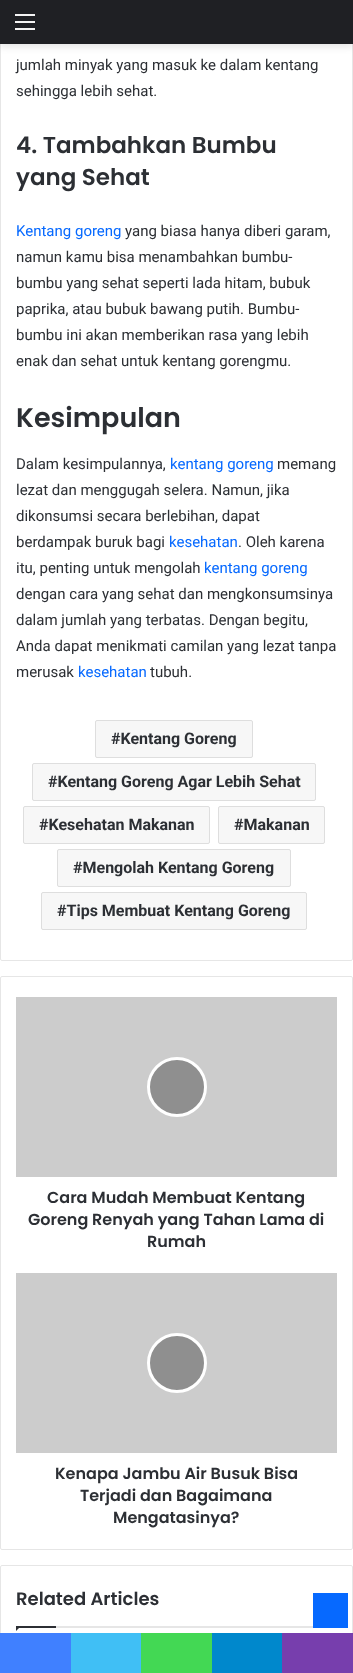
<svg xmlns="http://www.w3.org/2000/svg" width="353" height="1673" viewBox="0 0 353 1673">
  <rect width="100%" height="100%" fill="rgb(255,255,255)"/>
  <rect x="0.5" y="-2.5" width="352" height="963" rx="1.5" fill="none" stroke="rgb(230,230,230)"/>
  <rect x="0" y="3" width="353" height="44" fill="rgba(0,0,0,0.1)" filter="blur(3.5px)"/>
  <rect x="0" y="0" width="353" height="44" fill="rgb(31,32,36)"/>
  <rect x="15" y="21" width="20" height="2" fill="rgb(244,244,244)"/>
  <rect x="15" y="14" width="20" height="2" fill="rgb(244,244,244)"/>
  <rect x="15" y="28" width="20" height="2" fill="rgb(244,244,244)"/>
  <g font-family="Roboto" font-size="15" fill="rgb(44,47,52)">
    <text>
      <tspan x="16" y="70">jumlah minyak yang masuk ke dalam kentang</tspan>
      <tspan x="16" y="96">sehingga lebih sehat.</tspan>
    </text>
  </g>
  <g font-family="Poppins" font-size="23" font-weight="600" fill="rgb(44,47,52)">
    <text>
      <tspan x="16" y="153">4. Tambahkan Bumbu</tspan>
      <tspan x="16" y="185">yang Sehat</tspan>
    </text>
  </g>
  <text x="16" y="236" font-family="Roboto" font-size="15" fill="rgb(6,105,255)">Kentang goreng</text>
  <g font-family="Roboto" font-size="15" fill="rgb(44,47,52)">
    <text x="125" y="236">yang biasa hanya diberi garam,</text>
    <text>
      <tspan x="16" y="262">namun kamu bisa menambahkan bumbu-</tspan>
      <tspan x="16" y="288">bumbu yang sehat seperti lada hitam, bubuk</tspan>
      <tspan x="16" y="314">paprika, atau bubuk bawang putih. Bumbu-</tspan>
      <tspan x="16" y="340">bumbu ini akan memberikan rasa yang lebih</tspan>
      <tspan x="16" y="366">enak dan sehat untuk kentang gorengmu.</tspan>
    </text>
  </g>
  <text x="16" y="427" font-family="Poppins" font-size="27" font-weight="600" fill="rgb(44,47,52)">Kesimpulan</text>
  <text x="16" y="469" font-family="Roboto" font-size="15" fill="rgb(44,47,52)">Dalam kesimpulannya,</text>
  <text x="170" y="469" font-family="Roboto" font-size="15" fill="rgb(6,105,255)">kentang goreng</text>
  <g font-family="Roboto" font-size="15" fill="rgb(44,47,52)">
    <text x="277" y="469">memang</text>
    <text>
      <tspan x="16" y="495">lezat dan menggugah selera. Namun, jika</tspan>
      <tspan x="16" y="521">dikonsumsi secara berlebihan, dapat</tspan>
      <tspan x="16" y="547">berdampak buruk bagi</tspan>
    </text>
  </g>
  <text x="169" y="547" font-family="Roboto" font-size="15" fill="rgb(6,105,255)">kesehatan</text>
  <g font-family="Roboto" font-size="15" fill="rgb(44,47,52)">
    <text x="238" y="547">. Oleh karena</text>
    <text x="16" y="573">itu, penting untuk mengolah</text>
  </g>
  <text x="204" y="573" font-family="Roboto" font-size="15" fill="rgb(6,105,255)">kentang goreng</text>
  <g font-family="Roboto" font-size="15" fill="rgb(44,47,52)">
    <text>
      <tspan x="16" y="599">dengan cara yang sehat dan mengkonsumsinya</tspan>
      <tspan x="16" y="625">dalam jumlah yang terbatas. Dengan begitu,</tspan>
      <tspan x="16" y="651">Anda dapat menikmati camilan yang lezat tanpa</tspan>
      <tspan x="16" y="677">merusak</tspan>
    </text>
  </g>
  <text x="78" y="677" font-family="Roboto" font-size="15" fill="rgb(6,105,255)">kesehatan</text>
  <text x="150" y="677" font-family="Roboto" font-size="15" fill="rgb(44,47,52)">tubuh.</text>
  <rect x="95.5" y="720.5" width="157" height="37" rx="1.5" fill="rgb(247,247,247)" stroke="rgb(222,222,222)"/>
  <text x="111" y="744" font-family="Roboto" font-size="16" font-weight="bold" fill="rgb(44,47,52)">#Kentang Goreng</text>
  <rect x="32.5" y="763.5" width="283" height="37" rx="1.5" fill="rgb(247,247,247)" stroke="rgb(222,222,222)"/>
  <text x="48" y="787" font-family="Roboto" font-size="16" font-weight="bold" fill="rgb(44,47,52)">#Kentang Goreng Agar Lebih Sehat</text>
  <rect x="23.5" y="806.5" width="186" height="37" rx="1.5" fill="rgb(247,247,247)" stroke="rgb(222,222,222)"/>
  <text x="39" y="830" font-family="Roboto" font-size="16" font-weight="bold" fill="rgb(44,47,52)">#Kesehatan Makanan</text>
  <rect x="218.5" y="806.5" width="106" height="37" rx="1.5" fill="rgb(247,247,247)" stroke="rgb(222,222,222)"/>
  <text x="234" y="830" font-family="Roboto" font-size="16" font-weight="bold" fill="rgb(44,47,52)">#Makanan</text>
  <rect x="57.5" y="849.5" width="233" height="37" rx="1.5" fill="rgb(247,247,247)" stroke="rgb(222,222,222)"/>
  <text x="73" y="873" font-family="Roboto" font-size="16" font-weight="bold" fill="rgb(44,47,52)">#Mengolah Kentang Goreng</text>
  <rect x="41.5" y="892.5" width="265" height="37" rx="1.5" fill="rgb(247,247,247)" stroke="rgb(222,222,222)"/>
  <text x="57" y="916" font-family="Roboto" font-size="16" font-weight="bold" fill="rgb(44,47,52)">#Tips Membuat Kentang Goreng</text>
  <rect x="0.5" y="976.5" width="352" height="573" rx="1.5" fill="none" stroke="rgb(230,230,230)"/>
  <rect x="16" y="997" width="321" height="180" fill="rgb(204,204,204)"/>
  <circle cx="177" cy="1087" r="28.5" fill="rgb(143,143,143)" stroke="rgb(255,255,255)" stroke-width="3"/>
  <g font-family="Poppins" font-size="16" font-weight="600" fill="rgb(44,47,52)">
    <text x="47" y="1203">Cara Mudah Membuat Kentang</text>
    <text x="28" y="1225">Goreng Renyah yang Tahan Lama di</text>
    <text x="147" y="1247">Rumah</text>
  </g>
  <rect x="16" y="1273" width="321" height="180" fill="rgb(204,204,204)"/>
  <circle cx="177" cy="1363" r="28.5" fill="rgb(143,143,143)" stroke="rgb(255,255,255)" stroke-width="3"/>
  <g font-family="Poppins" font-size="16" font-weight="600" fill="rgb(44,47,52)">
    <text x="55" y="1479">Kenapa Jambu Air Busuk Bisa</text>
    <text x="80" y="1501">Terjadi dan Bagaimana</text>
    <text x="113" y="1523">Mengatasinya?</text>
  </g>
  <rect x="0.5" y="1565.5" width="352" height="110" rx="1.5" fill="none" stroke="rgb(230,230,230)"/>
  <rect x="56" y="1626" width="257" height="2" fill="rgb(230,230,230)"/>
  <text x="16" y="1605" font-family="Poppins" font-size="18" font-weight="600" fill="rgb(44,47,52)">Related Articles</text>
  <path d="M16 1626H21L16 1631Z" fill="rgb(44,47,52)"/>
  <rect x="16" y="1626" width="40" height="2" fill="rgb(44,47,52)"/>
  <rect x="313" y="1593" width="35" height="35" fill="rgb(6,105,255)"/>
  <rect x="0" y="1633" width="71" height="40" fill="rgb(64,128,255)"/>
  <rect x="71" y="1633" width="70" height="40" fill="rgb(64,191,245)"/>
  <rect x="141" y="1633" width="71" height="40" fill="rgb(67,216,84)"/>
  <rect x="212" y="1633" width="70" height="40" fill="rgb(0,136,204)"/>
  <rect x="282" y="1633" width="71" height="40" fill="rgb(119,62,173)"/>
</svg>
